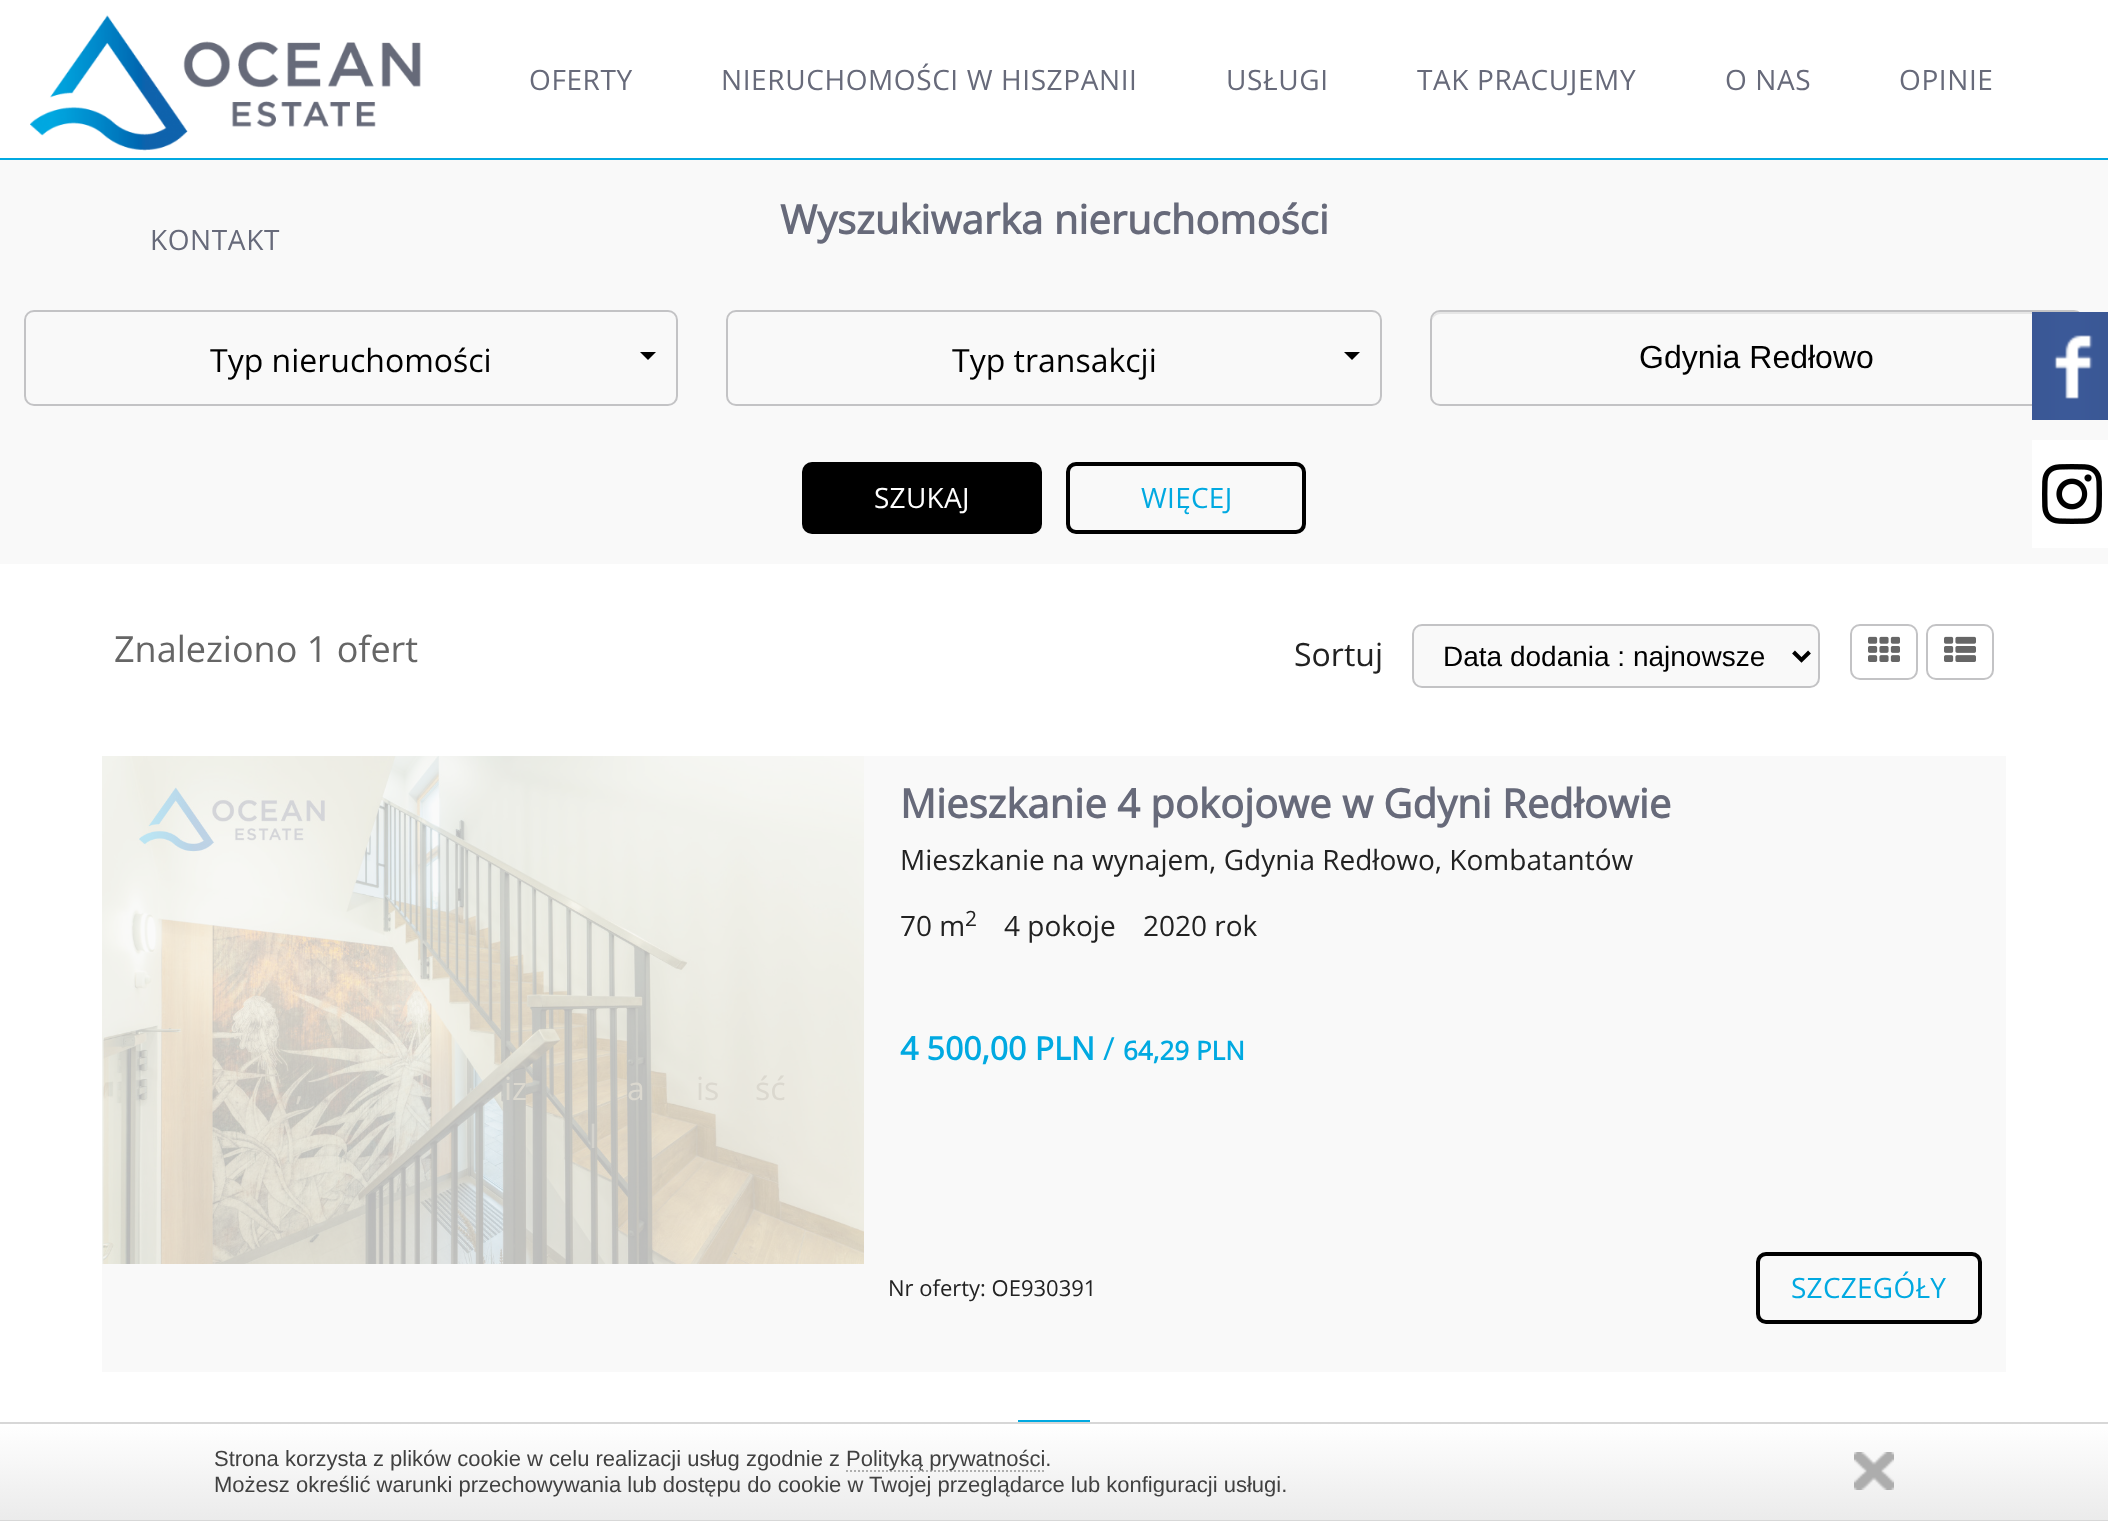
<svg xmlns="http://www.w3.org/2000/svg" width="2108" height="1521" viewBox="0 0 2108 1521">
  <defs>
    <linearGradient id="g1" gradientUnits="userSpaceOnUse" x1="1054" y1="1424" x2="1054" y2="1520"><stop offset="0" stop-color="rgb(255,255,255)"/><stop offset="1" stop-color="rgb(235,235,235)"/></linearGradient>
  </defs>
  <rect width="100%" height="100%" fill="rgb(255,255,255)"/>
  <rect x="0" y="158" width="2108" height="2" fill="rgb(1,169,225)"/>
  <image x="30" y="15" width="391" height="136" href="pic1.png"/>
  <g font-family="Open Sans" font-size="28" letter-spacing="0.6" fill="rgb(103,106,122)">
    <text x="529" y="90">OFERTY</text>
    <text x="721" y="90">NIERUCHOMOŚCI W HISZPANII</text>
    <text x="1226" y="90">USŁUGI</text>
    <text x="1417" y="90">TAK PRACUJEMY</text>
    <text x="1725" y="90">O NAS</text>
    <text x="1899" y="90">OPINIE</text>
  </g>
  <rect x="0" y="160" width="2108" height="404" fill="rgb(249,249,249)"/>
  <text x="150" y="250" font-family="Open Sans" font-size="28" letter-spacing="0.6" fill="rgb(103,106,122)">KONTAKT</text>
  <text x="780" y="234" font-family="Open Sans" font-size="40" font-weight="bold" fill="rgb(103,106,122)">Wyszukiwarka nieruchomości</text>
  <rect x="25" y="311" width="652" height="94" rx="9" fill="none" stroke="rgb(195,195,197)" stroke-width="2"/>
  <text x="210" y="372" font-family="Open Sans" font-size="32" fill="rgb(0,0,0)">Typ nieruchomości</text>
  <path d="M640 352H656L648 360Z" fill="rgb(0,0,0)"/>
  <rect x="727" y="311" width="654" height="94" rx="9" fill="none" stroke="rgb(195,195,197)" stroke-width="2"/>
  <text x="952" y="372" font-family="Open Sans" font-size="32" fill="rgb(0,0,0)">Typ transakcji</text>
  <path d="M1344 352H1360L1352 360Z" fill="rgb(0,0,0)"/>
  <path d="M1440 314H2074C2078 314 2082 318 2082 322V320C2082 316 2078 312 2074 312H1440C1436 312 1432 316 1432 320V322C1432 318 1436 314 1440 314Z" fill="rgb(230,230,230)"/>
  <rect x="1431" y="311" width="652" height="94" rx="9" fill="none" stroke="rgb(195,195,197)" stroke-width="2"/>
  <text x="1639" y="368" font-family="Liberation Sans" font-size="32" fill="rgb(0,0,0)">Gdynia Redłowo</text>
  <rect x="802" y="462" width="240" height="72" rx="10" fill="rgb(0,0,0)"/>
  <text x="874" y="508" font-family="Open Sans" font-size="28" letter-spacing="0.25" fill="rgb(255,255,255)">SZUKAJ</text>
  <rect x="1068" y="464" width="236" height="68" rx="8" fill="none" stroke="rgb(0,0,0)" stroke-width="4"/>
  <text x="1141" y="508" font-family="Open Sans" font-size="28" letter-spacing="0.25" fill="rgb(1,169,225)">WIĘCEJ</text>
  <image x="2032" y="312" width="76" height="108" href="pic2.png"/>
  <rect x="2032" y="440" width="76" height="108" fill="rgb(255,255,255)"/>
  <image x="2042" y="464" width="60" height="60" href="pic3.png"/>
  <text x="114" y="662" font-family="Open Sans" font-size="36" fill="rgb(102,102,102)">Znaleziono 1 ofert</text>
  <text x="1294" y="666" font-family="Open Sans" font-size="32" fill="rgb(34,34,34)">Sortuj</text>
  <rect x="1413" y="625" width="406" height="62" rx="9" fill="rgb(249,249,249)" stroke="rgb(195,195,197)" stroke-width="2"/>
  <path d="M1793.5 652L1801.5 660L1809.5 652" fill="none" stroke="rgb(0,0,0)" stroke-width="4"/>
  <text x="1443" y="666" font-family="Liberation Sans" font-size="28" fill="rgb(0,0,0)">Data dodania : najnowsze</text>
  <rect x="1851" y="625" width="66" height="54" rx="9" fill="none" stroke="rgb(195,195,197)" stroke-width="2"/>
  <image x="1868" y="636" width="32" height="26" href="pic4.png"/>
  <rect x="1927" y="625" width="66" height="54" rx="9" fill="none" stroke="rgb(195,195,197)" stroke-width="2"/>
  <image x="1944" y="636" width="32" height="26" href="pic5.png"/>
  <rect x="102" y="756" width="1904" height="616" fill="rgb(249,249,249)"/>
  <image x="102" y="756" width="762" height="508" href="pic6.png"/>
  <g font-family="Open Sans" font-size="32" fill="rgb(219,216,207)">
    <text x="295" y="1100">,</text>
    <text x="504" y="1100">iz</text>
    <text x="627" y="1100">a</text>
    <text x="696" y="1100">is</text>
    <text x="755" y="1100">ść</text>
  </g>
  <text x="589" y="1148" font-family="Open Sans" font-size="32" fill="rgb(212,211,205)">l</text>
  <text x="900" y="818" font-family="Open Sans" font-size="40" font-weight="bold" fill="rgb(103,106,122)">Mieszkanie 4 pokojowe w Gdyni Redłowie</text>
  <g font-family="Open Sans" font-size="28" fill="rgb(34,34,34)">
    <text x="900" y="870">Mieszkanie na wynajem, Gdynia Redłowo, Kombatantów</text>
    <text x="900" y="936">70 m</text>
  </g>
  <text x="965" y="926" font-family="Open Sans" font-size="21" fill="rgb(34,34,34)">2</text>
  <g font-family="Open Sans" font-size="28" fill="rgb(34,34,34)">
    <text x="1004" y="936">4 pokoje</text>
    <text x="1143" y="936">2020 rok</text>
  </g>
  <text x="900" y="1060" font-family="Open Sans" font-size="32" font-weight="bold" fill="rgb(1,169,225)">4 500,00 PLN</text>
  <text x="1103" y="1060" font-family="Open Sans" font-size="32" fill="rgb(1,169,225)">/</text>
  <text x="1123" y="1060" font-family="Open Sans" font-size="26" font-weight="bold" fill="rgb(1,169,225)">64,29 PLN</text>
  <text x="888" y="1296" font-family="Open Sans" font-size="22" fill="rgb(34,34,34)">Nr oferty: OE930391</text>
  <rect x="1758" y="1254" width="222" height="68" rx="8" fill="none" stroke="rgb(0,0,0)" stroke-width="4"/>
  <text x="1791" y="1298" font-family="Open Sans" font-size="28" letter-spacing="0.25" fill="rgb(1,169,225)">SZCZEGÓŁY</text>
  <rect x="1019" y="1421" width="70" height="72" fill="none" stroke="rgb(1,169,225)" stroke-width="2"/>
  <rect x="0" y="1424" width="2108" height="96" fill="url(#g1)"/>
  <rect x="0" y="1422" width="2108" height="2" fill="rgb(215,215,215)"/>
  <rect x="0" y="1520" width="2108" height="1" fill="rgb(215,215,215)"/>
  <text x="214" y="1466" font-family="Liberation Sans" font-size="22" fill="rgb(65,65,65)">Strona korzysta z plików cookie w celu realizacji usług zgodnie z</text>
  <path d="M846 1471H1046" fill="none" stroke="rgb(174,174,174)" stroke-width="2" stroke-dasharray="2 2"/>
  <text x="846" y="1466" font-family="Liberation Sans" font-size="22" fill="rgb(65,65,65)">Polityką prywatności.</text>
  <image x="1854" y="1452" width="40" height="38" href="pic7.png"/>
  <text x="214" y="1492" font-family="Liberation Sans" font-size="22" fill="rgb(65,65,65)">Możesz określić warunki przechowywania lub dostępu do cookie w Twojej przeglądarce lub konfiguracji usługi.</text>
</svg>
